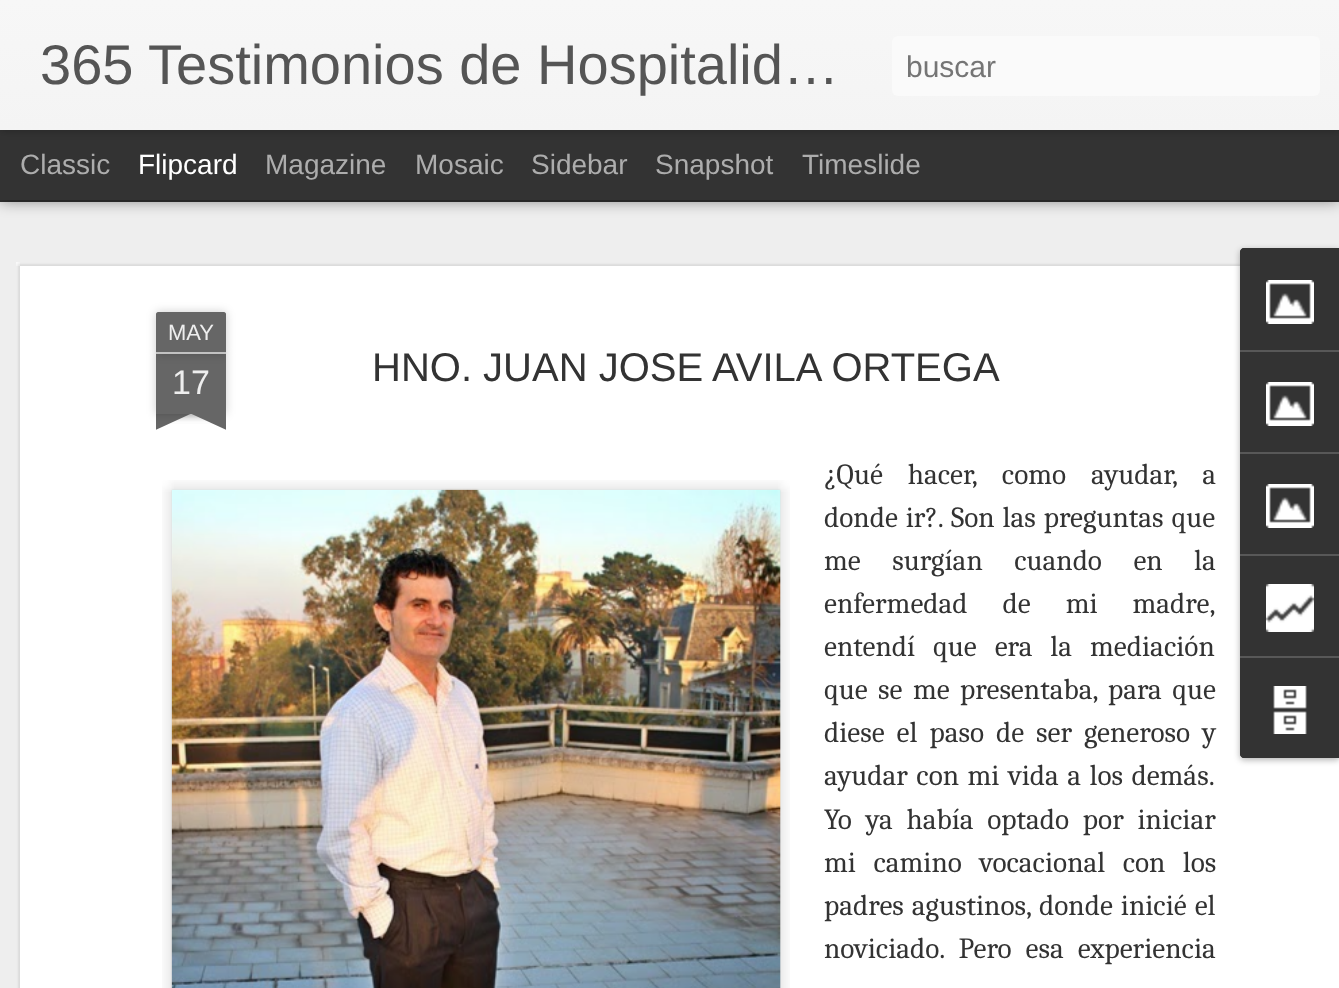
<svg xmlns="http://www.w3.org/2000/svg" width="1339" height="988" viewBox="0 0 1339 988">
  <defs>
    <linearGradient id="g1" gradientUnits="userSpaceOnUse" x1="0" y1="0" x2="0" y2="130"><stop offset="0" stop-color="rgb(247,247,247)"/><stop offset="1" stop-color="rgb(244,244,244)"/></linearGradient>
    <clipPath id="clip1"><rect x="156" y="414" width="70" height="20"/></clipPath>
    <clipPath id="clip2"><rect x="156" y="414" width="70" height="20"/></clipPath>
  </defs>
  <rect width="100%" height="100%" fill="rgb(51,51,51)"/>
  <rect x="0" y="202" width="1339" height="786" fill="rgb(238,238,238)"/>
  <rect x="0" y="130" width="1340" height="70" fill="rgba(0,0,0,0.5)" filter="blur(8px)"/>
  <rect x="0" y="130" width="1339" height="70" fill="rgb(51,51,51)"/>
  <rect x="0" y="0" width="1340" height="130" fill="rgba(0,0,0,0.3)" filter="blur(5px)"/>
  <rect x="0" y="0" width="1339" height="130" fill="url(#g1)"/>
  <text x="40" y="84" font-family="Liberation Sans" font-size="56" fill="rgb(85,85,85)">365 Testimonios de Hospitalid…</text>
  <rect x="892" y="36" width="428" height="60" rx="6" fill="rgb(250,250,250)"/>
  <text x="906" y="77" font-family="Liberation Sans" font-size="30" fill="rgb(117,117,117)">buscar</text>
  <text x="20" y="174" font-family="Liberation Sans" font-size="28" fill="rgb(173,173,173)">Classic</text>
  <text x="138" y="174" font-family="Liberation Sans" font-size="28" fill="rgb(255,255,255)">Flipcard</text>
  <g font-family="Liberation Sans" font-size="28" fill="rgb(173,173,173)">
    <text x="265" y="174">Magazine</text>
    <text x="415" y="174">Mosaic</text>
    <text x="531" y="174">Sidebar</text>
    <text x="655" y="174">Snapshot</text>
    <text x="802" y="174">Timeslide</text>
  </g>
  <rect x="16" y="262" width="1323" height="726" fill="rgb(255,255,255)"/>
  <image x="16" y="262" width="1224" height="726" href="pic1.png"/>
  <rect x="156" y="354" width="70" height="60" fill="rgba(0,0,0,0.2)" filter="blur(5px)"/>
  <rect x="156" y="354" width="70" height="60" fill="rgb(102,102,102)"/>
  <rect x="156" y="312" width="70" height="42" rx="2" fill="rgba(0,0,0,0.2)" filter="blur(5px)"/>
  <path d="M158 312H224C225 312 226 313 226 314V354H156V314C156 313 157 312 158 312Z" fill="rgb(102,102,102)"/>
  <rect x="156" y="352" width="70" height="2" fill="rgb(194,194,194)"/>
  <text x="168" y="340" font-family="Liberation Sans" font-size="22" fill="rgb(238,238,238)">MAY</text>
  <text x="172" y="394" font-family="Liberation Sans" font-size="34" fill="rgb(238,238,238)">17</text>
  <g clip-path="url(#clip1)">
    <rect x="138" y="394" width="100" height="20" fill="rgba(0,0,0,0.2)" filter="blur(5px)"/>
  </g>
  <g clip-path="url(#clip2)">
    <path d="M138 416L229 374L238 392L147 434Z" fill="rgb(102,102,102)"/>
  </g>
  <g clip-path="url(#clip1)">
    <rect x="144" y="394" width="100" height="20" fill="rgba(0,0,0,0.2)" filter="blur(5px)"/>
  </g>
  <g clip-path="url(#clip2)">
    <path d="M153 374L244 416L235 434L144 392Z" fill="rgb(102,102,102)"/>
  </g>
  <text x="372" y="381" font-family="Liberation Sans" font-size="40" fill="rgb(51,51,51)">HNO. JUAN JOSE AVILA ORTEGA</text>
  <text x="824" y="484" word-spacing="18.5" font-family="Caladea" font-size="29.3" fill="rgb(51,51,51)">¿Qué hacer, como ayudar, a</text>
  <image x="162" y="480" width="628" height="508" href="pic2.png"/>
  <image x="170" y="488" width="611" height="500" href="pic3.png"/>
  <g font-family="Caladea" font-size="29.3" fill="rgb(51,51,51)">
    <text>
      <tspan x="824" y="527" word-spacing="1.5">donde ir?. Son las preguntas que</tspan>
      <tspan x="824" y="570" word-spacing="25">me surgían cuando en la</tspan>
      <tspan x="824" y="613" word-spacing="28.5">enfermedad de mi madre,</tspan>
      <tspan x="824" y="656" word-spacing="11.5">entendí que era la mediación</tspan>
      <tspan x="824" y="699" word-spacing="4">que se me presentaba, para que</tspan>
      <tspan x="824" y="742" word-spacing="5.5">diese el paso de ser generoso y</tspan>
      <tspan x="824" y="785" word-spacing="2">ayudar con mi vida a los demás.</tspan>
      <tspan x="824" y="829" word-spacing="7.25">Yo ya había optado por iniciar</tspan>
      <tspan x="824" y="872" word-spacing="11">mi camino vocacional con los</tspan>
      <tspan x="824" y="915" word-spacing="1.5">padres agustinos, donde inicié el</tspan>
      <tspan x="824" y="958" word-spacing="7.5">noviciado. Pero esa experiencia</tspan>
    </text>
  </g>
  <rect x="1240" y="250" width="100" height="510" rx="4" fill="rgba(0,0,0,0.3)" filter="blur(3px)"/>
  <path d="M1244 248H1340V758H1244C1242 758 1240 756 1240 754V252C1240 250 1242 248 1244 248Z" fill="rgb(51,51,51)"/>
  <path d="M1244 248H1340V350H1240V252C1240 250 1242 248 1244 248Z" fill="rgb(51,51,51)"/>
  <image x="1266" y="280" width="48" height="44" href="pic4.png"/>
  <rect x="1240" y="350" width="99" height="2" fill="rgb(88,88,88)"/>
  <image x="1266" y="382" width="48" height="44" href="pic4.png"/>
  <rect x="1240" y="452" width="99" height="2" fill="rgb(88,88,88)"/>
  <image x="1266" y="484" width="48" height="44" href="pic4.png"/>
  <rect x="1240" y="554" width="99" height="2" fill="rgb(88,88,88)"/>
  <image x="1266" y="584" width="48" height="48" href="pic5.png"/>
  <path d="M1240 656H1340V758H1244C1242 758 1240 756 1240 754Z" fill="rgb(51,51,51)"/>
  <rect x="1240" y="656" width="99" height="2" fill="rgb(88,88,88)"/>
  <image x="1273" y="686" width="34" height="48" href="pic6.png"/>
</svg>
